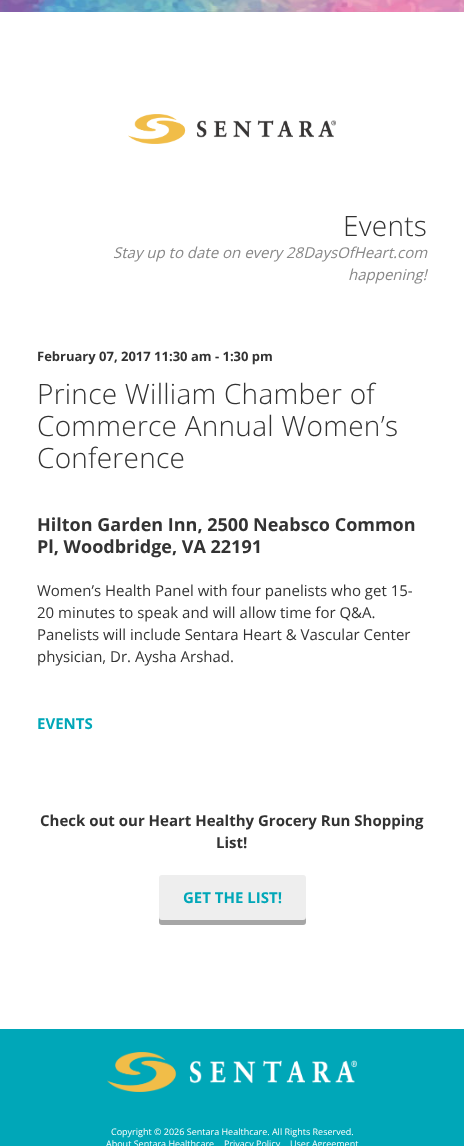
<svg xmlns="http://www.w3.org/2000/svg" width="464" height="1146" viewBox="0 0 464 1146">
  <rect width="100%" height="100%" fill="rgb(255,255,255)"/>
  <image x="0" y="0" width="464" height="12" href="pic1.png"/>
  <image x="128" y="114" width="208" height="30" href="pic2.png"/>
  <text x="343" y="236" font-family="Open Sans" font-size="28" font-weight="300" letter-spacing="0.25" fill="rgb(51,51,51)">Events</text>
  <g font-family="Open Sans" font-size="15" font-style="italic" fill="rgb(136,136,136)">
    <text x="113" y="258">Stay up to date on every 28DaysOfHeart.com</text>
    <text x="348" y="280">happening!</text>
  </g>
  <text x="37" y="361" font-family="Open Sans" font-size="13" font-weight="bold" fill="rgb(51,51,51)">February 07, 2017 11:30 am - 1:30 pm</text>
  <g font-family="Open Sans" font-size="28" font-weight="300" letter-spacing="0.25" fill="rgb(51,51,51)">
    <text>
      <tspan x="37" y="404">Prince William Chamber of</tspan>
      <tspan x="37" y="436">Commerce Annual Women’s</tspan>
      <tspan x="37" y="468">Conference</tspan>
    </text>
  </g>
  <g font-family="Open Sans" font-size="18" font-weight="bold" fill="rgb(51,51,51)">
    <text>
      <tspan x="37" y="531">Hilton Garden Inn, 2500 Neabsco Common</tspan>
      <tspan x="37" y="553">Pl, Woodbridge, VA 22191</tspan>
    </text>
  </g>
  <g font-family="Open Sans" font-size="15" fill="rgb(51,51,51)">
    <text>
      <tspan x="37" y="596">Women’s Health Panel with four panelists who get 15-</tspan>
      <tspan x="37" y="618">20 minutes to speak and will allow time for Q&amp;A.</tspan>
      <tspan x="37" y="640">Panelists will include Sentara Heart &amp; Vascular Center</tspan>
      <tspan x="37" y="662">physician, Dr. Aysha Arshad.</tspan>
    </text>
  </g>
  <text x="37" y="729" font-family="Open Sans" font-size="15" font-weight="bold" fill="rgb(0,167,184)">EVENTS</text>
  <g font-family="Open Sans" font-size="15" font-weight="bold" fill="rgb(51,51,51)">
    <text x="40" y="826">Check out our Heart Healthy Grocery Run Shopping</text>
    <text x="216" y="848">List!</text>
  </g>
  <rect x="159" y="875" width="147" height="50" rx="3" fill="rgb(238,238,238)"/>
  <path d="M159 917V922C159 924 160 925 162 925H303C305 925 306 924 306 922V917C306 919 305 920 303 920H162C160 920 159 919 159 917Z" fill="rgba(0,0,0,0.3)"/>
  <text x="183" y="903" font-family="Open Sans" font-size="15" font-weight="bold" fill="rgb(0,167,184)">GET THE LIST!</text>
  <rect x="0" y="1029" width="464" height="117" fill="rgb(0,167,184)"/>
  <image x="107" y="1052" width="250" height="40" href="pic3.png"/>
  <g font-family="Open Sans" font-size="9" fill="rgb(255,255,255)">
    <text x="111" y="1135">Copyright © 2026 Sentara Healthcare. All Rights Reserved.</text>
    <text x="106" y="1147">About Sentara Healthcare</text>
    <text x="224" y="1147">Privacy Policy</text>
    <text x="290" y="1147">User Agreement</text>
  </g>
</svg>
